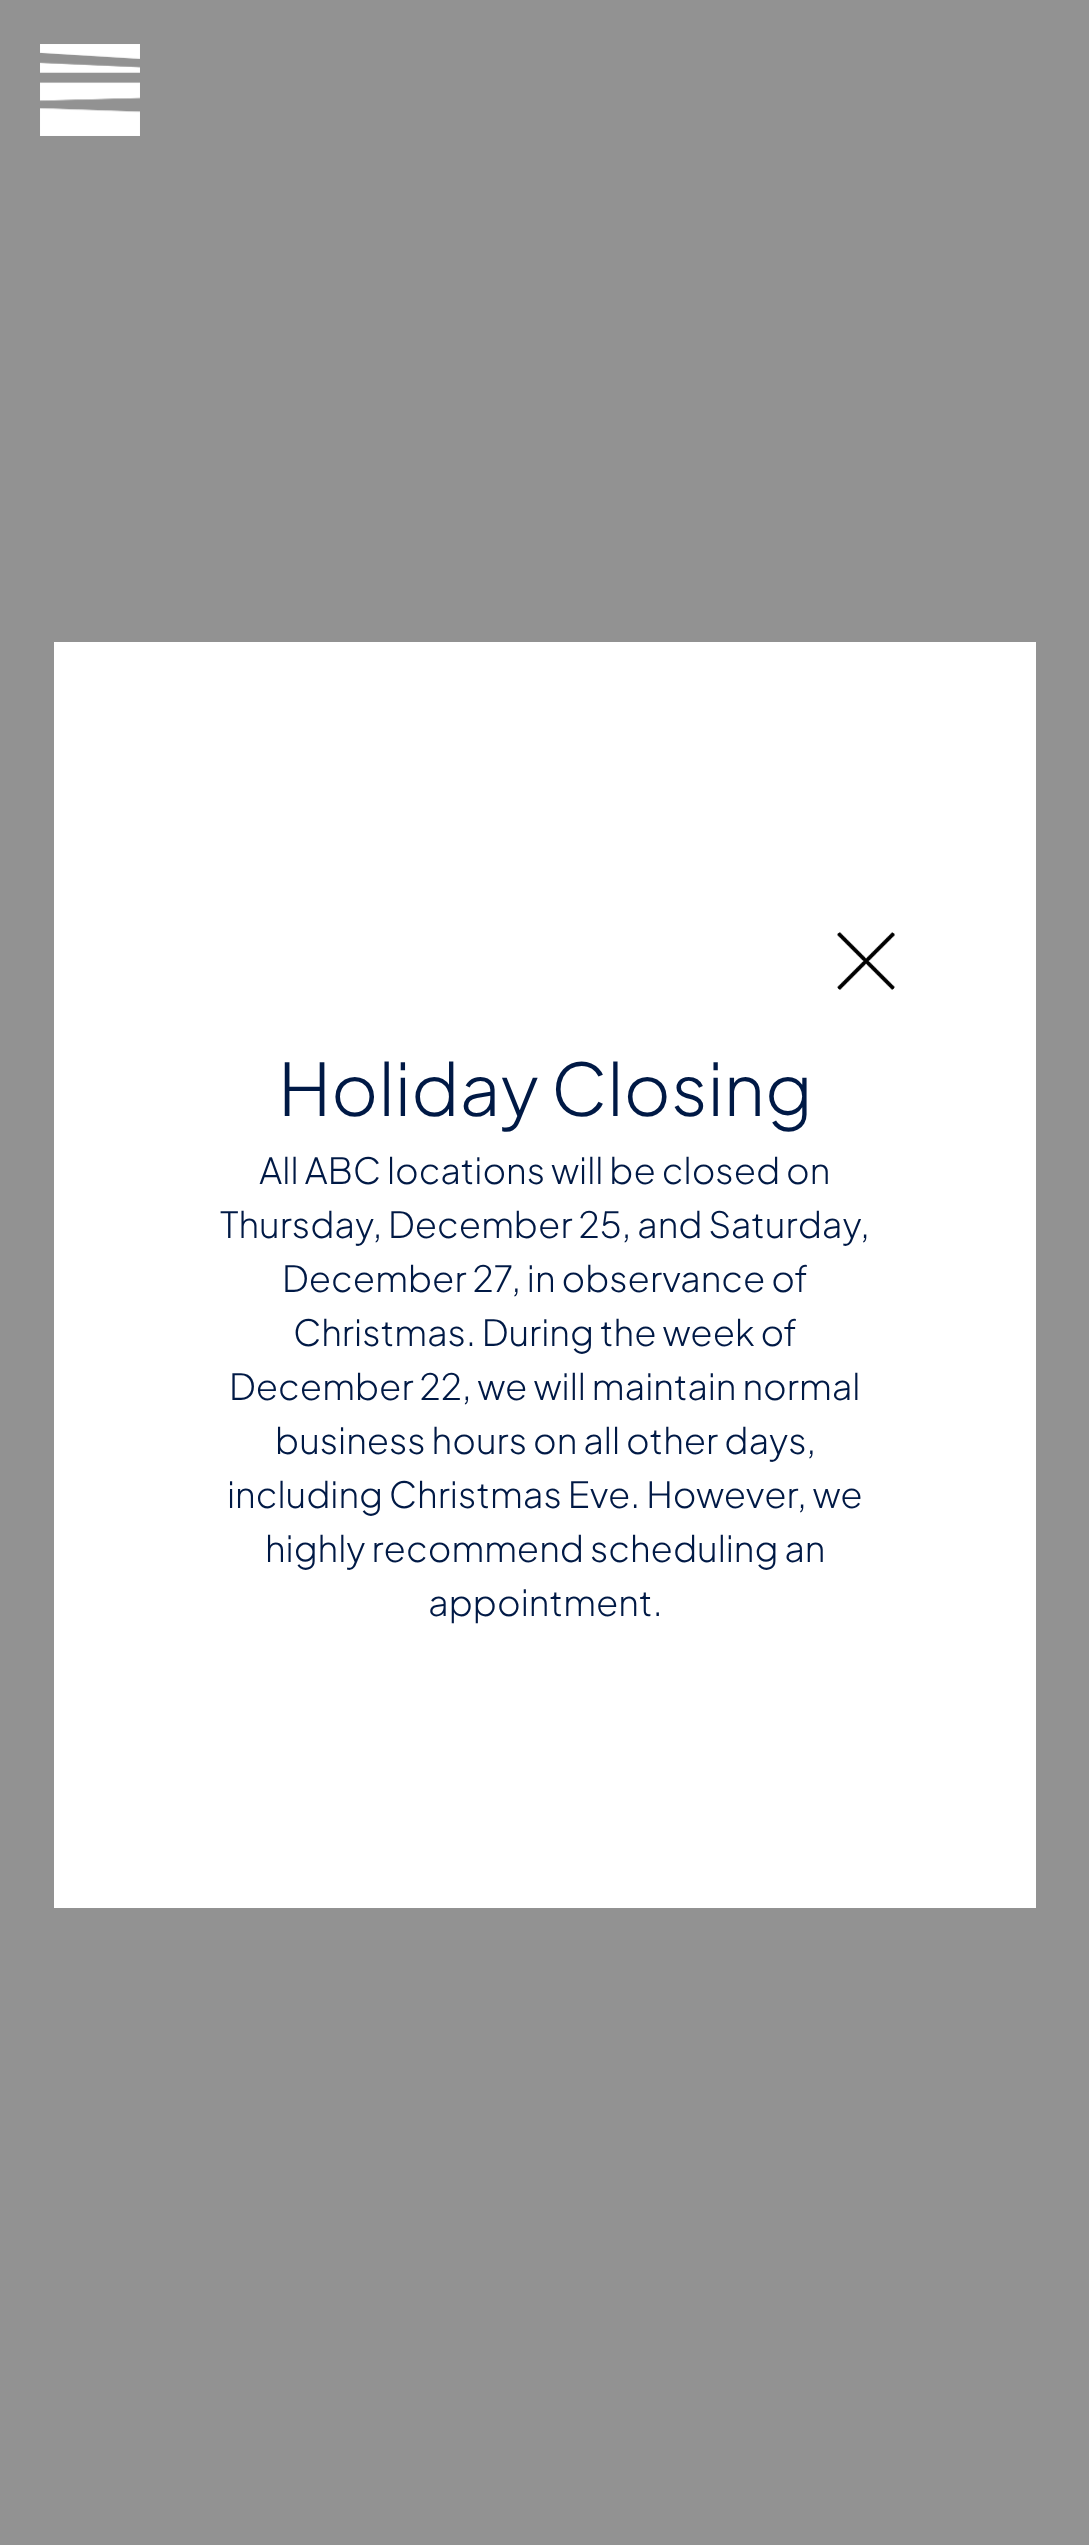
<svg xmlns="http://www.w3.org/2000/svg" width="1089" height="2545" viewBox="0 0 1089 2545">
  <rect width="100%" height="100%" fill="rgb(146,146,146)"/>
  <image x="40" y="44" width="100" height="92" href="pic1.png"/>
  <rect x="54" y="642" width="982" height="1266" fill="rgb(255,255,255)"/>
  <image x="837" y="932" width="58" height="58" href="pic2.png"/>
  <text x="278" y="1116" font-family="Plus Jakarta Sans" font-size="72" font-weight="300" fill="rgb(0,25,69)">Holiday Closing</text>
  <g font-family="Plus Jakarta Sans" font-size="36" font-weight="300" fill="rgb(0,25,69)">
    <text x="259" y="1184">All ABC locations will be closed on</text>
    <text x="220" y="1238">Thursday, December 25, and Saturday,</text>
    <text x="282" y="1292">December 27, in observance of</text>
    <text x="293" y="1346">Christmas. During the week of</text>
    <text x="229" y="1400">December 22, we will maintain normal</text>
    <text x="275" y="1454">business hours on all other days,</text>
    <text x="227" y="1508">including Christmas Eve. However, we</text>
    <text x="265" y="1562">highly recommend scheduling an</text>
    <text x="428" y="1616">appointment.</text>
  </g>
</svg>
